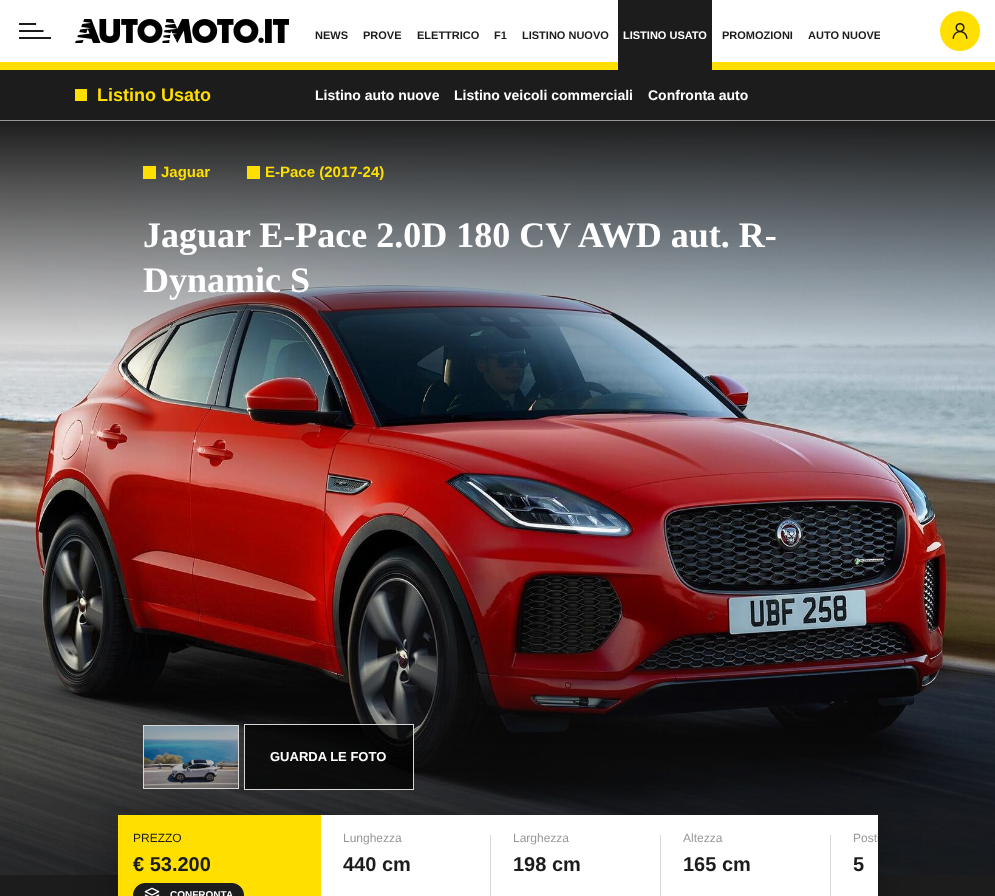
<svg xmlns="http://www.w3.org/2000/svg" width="995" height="896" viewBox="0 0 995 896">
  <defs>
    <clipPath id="clip1"><rect x="310" y="0" width="570" height="70"/></clipPath>
    <clipPath id="clip2"><rect x="118" y="815" width="760" height="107"/></clipPath>
  </defs>
  <rect width="100%" height="100%" fill="rgb(28,28,28)"/>
  <rect x="0" y="0" width="995" height="62" fill="rgb(255,255,255)"/>
  <rect x="0" y="62" width="995" height="8" fill="rgb(255,223,0)"/>
  <image x="19" y="23" width="32" height="16" href="pic1.png"/>
  <image x="75" y="19" width="214" height="24" href="pic2.png"/>
  <g font-family="Liberation Sans" font-size="11" font-weight="bold" fill="rgb(28,28,28)">
    <text x="315" y="39">NEWS</text>
    <text x="363" y="39">PROVE</text>
    <text x="417" y="39">ELETTRICO</text>
    <text x="494" y="39">F1</text>
    <text x="522" y="39">LISTINO NUOVO</text>
  </g>
  <rect x="618" y="0" width="94" height="70" fill="rgb(28,28,28)"/>
  <text x="623" y="39" font-family="Liberation Sans" font-size="11" font-weight="bold" fill="rgb(255,255,255)">LISTINO USATO</text>
  <text x="722" y="39" font-family="Liberation Sans" font-size="11" font-weight="bold" fill="rgb(28,28,28)">PROMOZIONI</text>
  <g clip-path="url(#clip1)">
    <text x="808" y="39" font-family="Liberation Sans" font-size="11" font-weight="bold" fill="rgb(28,28,28)">AUTO NUOVE</text>
  </g>
  <circle cx="960" cy="31" r="20" fill="rgb(255,223,0)"/>
  <image x="952" y="23" width="16" height="16" href="pic3.png"/>
  <rect x="0" y="120" width="995" height="1" fill="rgb(151,151,151)"/>
  <rect x="75" y="89" width="12" height="12" fill="rgb(255,223,0)"/>
  <text x="97" y="101" font-family="Liberation Sans" font-size="18" font-weight="bold" fill="rgb(255,223,0)">Listino Usato</text>
  <g font-family="Liberation Sans" font-size="14" font-weight="bold" fill="rgb(255,255,255)">
    <text x="315" y="100">Listino auto nuove</text>
    <text x="454" y="100">Listino veicoli commerciali</text>
    <text x="648" y="100">Confronta auto</text>
  </g>
  <image x="0" y="121" width="995" height="754" href="pic4.png"/>
  <rect x="143" y="166" width="13" height="13" fill="rgb(255,223,0)"/>
  <text x="161" y="177" font-family="Liberation Sans" font-size="15" font-weight="bold" fill="rgb(255,223,0)">Jaguar</text>
  <rect x="247" y="166" width="13" height="13" fill="rgb(255,223,0)"/>
  <text x="265" y="177" font-family="Liberation Sans" font-size="15" font-weight="bold" fill="rgb(255,223,0)">E-Pace (2017-24)</text>
  <g font-family="Liberation Serif" font-size="36" font-weight="bold" fill="rgb(255,255,255)">
    <text>
      <tspan x="143" y="247">Jaguar E-Pace 2.0D 180 CV AWD aut. R-</tspan>
      <tspan x="143" y="292">Dynamic S</tspan>
    </text>
  </g>
  <rect x="118" y="815" width="760" height="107" fill="rgba(0,0,0,0.25)" filter="blur(20px)"/>
  <image x="144" y="726" width="94" height="62" href="pic5.png"/>
  <rect x="143.5" y="725.5" width="95" height="63" fill="none" stroke="rgb(215,215,215)"/>
  <rect x="244.5" y="724.5" width="169" height="65" fill="rgba(0,0,0,0.75)" stroke="rgb(215,215,215)"/>
  <text x="270" y="761" font-family="Liberation Sans" font-size="13" font-weight="bold" fill="rgb(255,255,255)">GUARDA LE FOTO</text>
  <rect x="321" y="815" width="557" height="81" fill="rgb(255,255,255)"/>
  <rect x="118" y="815" width="203" height="81" fill="rgb(255,223,0)"/>
  <text x="133" y="842" font-family="Liberation Sans" font-size="12" fill="rgb(28,28,28)">PREZZO</text>
  <text x="133" y="871" font-family="Liberation Sans" font-size="20" font-weight="bold" fill="rgb(28,28,28)">€ 53.200</text>
  <rect x="133.5" y="883.5" width="110" height="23" rx="11.5" fill="rgb(28,28,28)" stroke="rgb(28,28,28)"/>
  <image x="144" y="887" width="16" height="9" href="pic6.png"/>
  <text x="170" y="898" font-family="Liberation Sans" font-size="10" font-weight="bold" fill="rgb(255,255,255)">CONFRONTA</text>
  <text x="343" y="842" font-family="Liberation Sans" font-size="12" fill="rgb(151,151,151)">Lunghezza</text>
  <text x="343" y="871" font-family="Liberation Sans" font-size="20" font-weight="bold" fill="rgb(28,28,28)">440 cm</text>
  <rect x="490" y="835" width="1" height="61" fill="rgb(215,215,215)"/>
  <text x="513" y="842" font-family="Liberation Sans" font-size="12" fill="rgb(151,151,151)">Larghezza</text>
  <text x="513" y="871" font-family="Liberation Sans" font-size="20" font-weight="bold" fill="rgb(28,28,28)">198 cm</text>
  <rect x="660" y="835" width="1" height="61" fill="rgb(215,215,215)"/>
  <text x="683" y="842" font-family="Liberation Sans" font-size="12" fill="rgb(151,151,151)">Altezza</text>
  <text x="683" y="871" font-family="Liberation Sans" font-size="20" font-weight="bold" fill="rgb(28,28,28)">165 cm</text>
  <rect x="830" y="835" width="1" height="61" fill="rgb(215,215,215)"/>
  <g clip-path="url(#clip2)">
    <text x="853" y="842" font-family="Liberation Sans" font-size="12" fill="rgb(151,151,151)">Posti</text>
  </g>
  <text x="853" y="871" font-family="Liberation Sans" font-size="20" font-weight="bold" fill="rgb(28,28,28)">5</text>
</svg>
